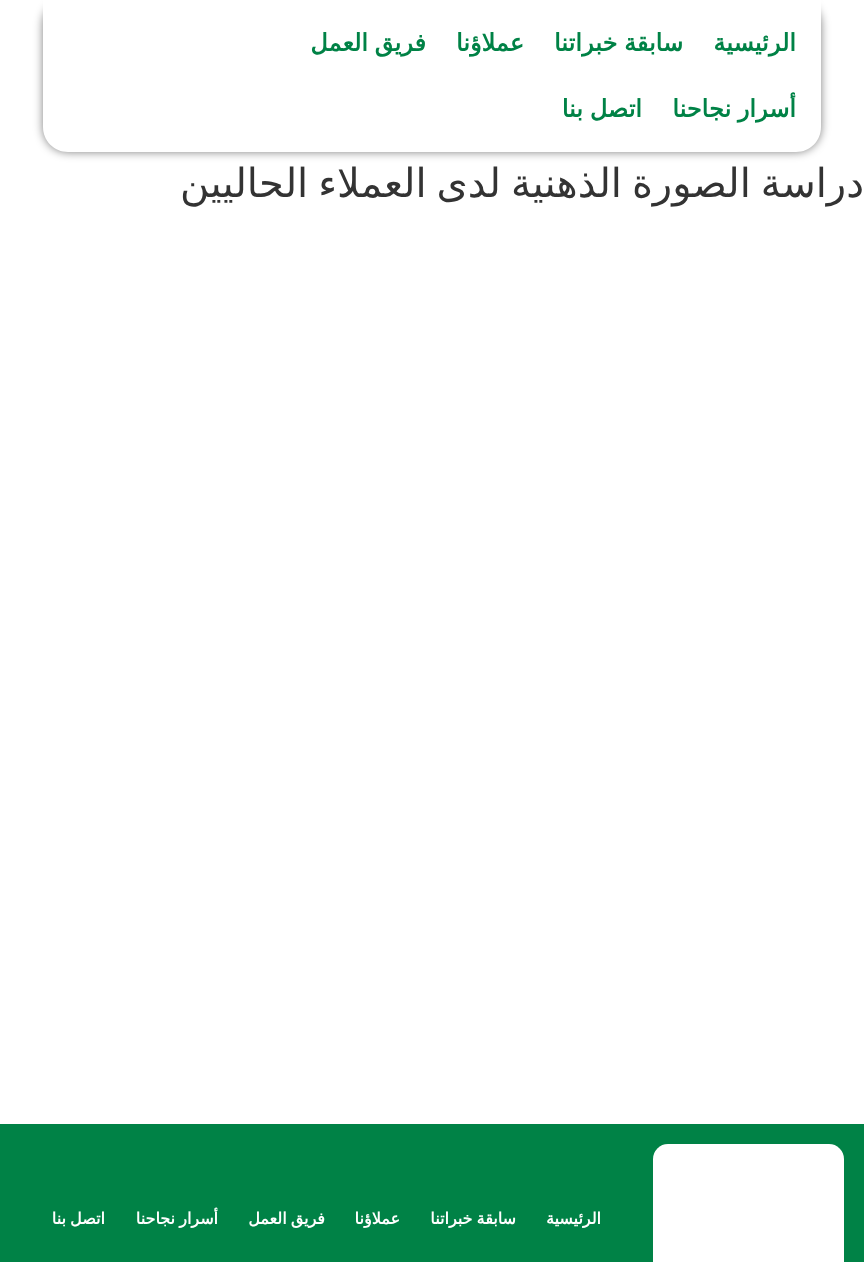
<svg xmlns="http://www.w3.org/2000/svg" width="864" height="1262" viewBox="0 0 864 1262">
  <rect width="100%" height="100%" fill="rgb(255,255,255)"/>
  <rect x="43" y="0" width="778" height="152" rx="25" fill="rgba(0,0,0,0.5)" filter="blur(5px)"/>
  <path d="M43 0H821V127C821 141 810 152 796 152H68C54 152 43 141 43 127Z" fill="rgb(255,255,255)"/>
  <g font-family="DejaVu Sans" font-size="24" font-weight="bold" direction="rtl" fill="rgb(0,130,70)">
    <text x="796" y="51">الرئيسية</text>
    <text x="683" y="51" word-spacing="-1">سابقة خبراتنا</text>
    <text x="524" y="51">عملاؤنا</text>
    <text x="426" y="51" word-spacing="-1">فريق العمل</text>
    <text x="796" y="117" word-spacing="-1">أسرار نجاحنا</text>
    <text x="642" y="117" word-spacing="-1">اتصل بنا</text>
  </g>
  <text x="864" y="197" word-spacing="-2.75" font-family="DejaVu Sans" font-size="40" direction="rtl" fill="rgb(51,51,51)">دراسة الصورة الذهنية لدى العملاء الحاليين</text>
  <rect x="0" y="1124" width="864" height="138" fill="rgb(0,130,70)"/>
  <rect x="653" y="1144" width="191" height="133" rx="15" fill="rgb(255,255,255)"/>
  <g font-family="DejaVu Sans" font-size="16" font-weight="bold" direction="rtl" fill="rgb(255,255,255)">
    <text x="601" y="1224">الرئيسية</text>
    <text x="516" y="1224" word-spacing="-1">سابقة خبراتنا</text>
    <text x="400" y="1224">عملاؤنا</text>
    <text x="325" y="1224" word-spacing="-1">فريق العمل</text>
    <text x="218" y="1224" word-spacing="-1">أسرار نجاحنا</text>
    <text x="105" y="1224" word-spacing="-1">اتصل بنا</text>
  </g>
</svg>
